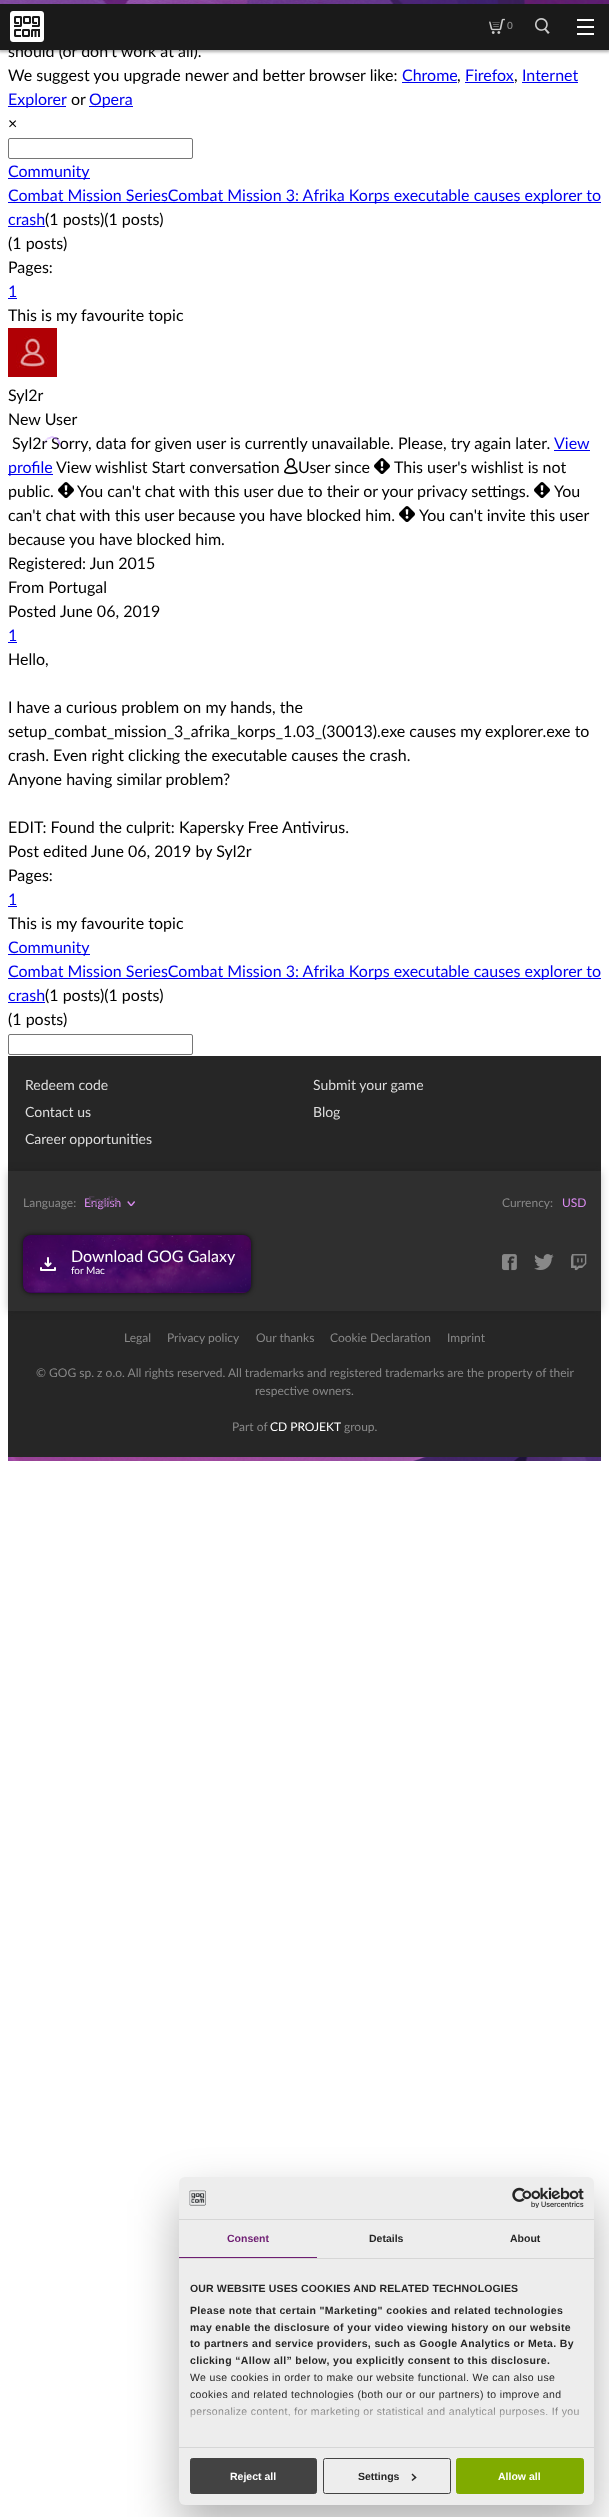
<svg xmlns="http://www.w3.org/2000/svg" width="609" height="2517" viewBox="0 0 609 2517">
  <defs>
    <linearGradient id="g1" gradientUnits="userSpaceOnUse" x1="382" y1="2447" x2="382" y2="2395"><stop offset="0" stop-color="rgb(237,237,237)"/><stop offset="0.5" stop-color="rgb(237,237,237)" stop-opacity="0.8"/><stop offset="1" stop-color="rgb(237,237,237)" stop-opacity="0"/></linearGradient>
  </defs>
  <rect width="100%" height="100%" fill="rgb(255,255,255)"/>
  <rect x="-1" y="0" width="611" height="52" fill="rgba(0,0,0,0.3)" filter="blur(1.5px)"/>
  <text x="8" y="57" font-family="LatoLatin" font-size="16" fill="rgb(0,0,0)">should (or don't work at all).</text>
  <rect x="0" y="4" width="609" height="46" fill="rgb(26,26,26)"/>
  <image x="0" y="0" width="609" height="4" href="pic1.png"/>
  <image x="10" y="11" width="34" height="31" href="pic2.png"/>
  <image x="489" y="18" width="16" height="16" href="pic3.png"/>
  <text x="507" y="29" font-family="LatoLatin" font-size="10" font-weight="600" fill="rgb(136,136,136)">0</text>
  <image x="535" y="18" width="15" height="16" href="pic4.png"/>
  <rect x="577" y="19" width="17" height="2" fill="rgb(255,255,255)"/>
  <rect x="577" y="26" width="17" height="2" fill="rgb(255,255,255)"/>
  <rect x="577" y="33" width="17" height="2" fill="rgb(255,255,255)"/>
  <text x="8" y="81" font-family="LatoLatin" font-size="16" fill="rgb(0,0,0)">We suggest you upgrade newer and better browser like:</text>
  <text x="402" y="81" font-family="LatoLatin" font-size="16" fill="rgb(0,0,238)">Chrome</text>
  <rect x="402" y="82" width="55" height="1" fill="rgb(0,0,238)"/>
  <text x="457" y="81" font-family="LatoLatin" font-size="16" fill="rgb(0,0,0)">,</text>
  <text x="465" y="81" font-family="LatoLatin" font-size="16" fill="rgb(0,0,238)">Firefox</text>
  <rect x="465" y="82" width="49" height="1" fill="rgb(0,0,238)"/>
  <text x="514" y="81" font-family="LatoLatin" font-size="16" fill="rgb(0,0,0)">,</text>
  <text x="522" y="81" font-family="LatoLatin" font-size="16" fill="rgb(0,0,238)">Internet</text>
  <rect x="522" y="82" width="56" height="1" fill="rgb(0,0,238)"/>
  <rect x="8" y="106" width="58" height="1" fill="rgb(0,0,238)"/>
  <text x="8" y="105" font-family="LatoLatin" font-size="16" fill="rgb(0,0,238)">Explorer</text>
  <text x="71" y="105" font-family="LatoLatin" font-size="16" fill="rgb(0,0,0)">or</text>
  <rect x="89" y="106" width="44" height="1" fill="rgb(0,0,238)"/>
  <text x="89" y="105" font-family="LatoLatin" font-size="16" fill="rgb(0,0,238)">Opera</text>
  <text x="8" y="129" font-family="LatoLatin" font-size="16" fill="rgb(0,0,0)">×</text>
  <rect x="8.5" y="138.5" width="184" height="20" rx="1.5" fill="none" stroke="rgb(118,118,118)"/>
  <rect x="8" y="178" width="82" height="1" fill="rgb(0,0,238)"/>
  <text x="8" y="177" font-family="LatoLatin" font-size="16" fill="rgb(0,0,238)">Community</text>
  <rect x="8" y="202" width="593" height="1" fill="rgb(0,0,238)"/>
  <g font-family="LatoLatin" font-size="16" fill="rgb(0,0,238)">
    <text>
      <tspan x="8" y="201">Combat Mission SeriesCombat Mission 3: Afrika Korps executable causes explorer to</tspan>
      <tspan x="8" y="225">crash</tspan>
    </text>
  </g>
  <text x="45" y="225" font-family="LatoLatin" font-size="16" fill="rgb(0,0,0)">(1 posts)(1 posts)</text>
  <rect x="8" y="226" width="37" height="1" fill="rgb(0,0,238)"/>
  <g font-family="LatoLatin" font-size="16" fill="rgb(0,0,0)">
    <text>
      <tspan x="8" y="249">(1 posts)</tspan>
      <tspan x="8" y="273">Pages:</tspan>
    </text>
  </g>
  <text x="8" y="297" font-family="LatoLatin" font-size="16" fill="rgb(0,0,238)">1</text>
  <rect x="8" y="298" width="9" height="1" fill="rgb(0,0,238)"/>
  <text x="8" y="321" font-family="LatoLatin" font-size="16" fill="rgb(0,0,0)">This is my favourite topic</text>
  <image x="8" y="328" width="49" height="49" href="pic5.png"/>
  <g font-family="LatoLatin" font-size="16" fill="rgb(0,0,0)">
    <text>
      <tspan x="8" y="401">Syl2r</tspan>
      <tspan x="8" y="425">New User</tspan>
    </text>
    <text x="12" y="449">Syl2r</text>
  </g>
  <rect x="44" y="442" width="2" height="2" fill="rgba(179,112,255,0.03)"/>
  <rect x="44" y="442" width="2" height="2" fill="rgba(179,112,255,0.05)"/>
  <rect x="44" y="441" width="2" height="2" fill="rgba(179,112,255,0.07)"/>
  <rect x="44" y="440" width="2" height="2" fill="rgba(179,112,255,0.09)"/>
  <rect x="45" y="440" width="2" height="2" fill="rgba(179,112,255,0.1)"/>
  <rect x="45" y="439" width="2" height="2" fill="rgba(179,112,255,0.12)"/>
  <circle cx="47" cy="439" r="1" fill="rgba(217,184,255,0.27)"/>
  <circle cx="48" cy="439" r="1" fill="rgba(217,184,255,0.3)"/>
  <circle cx="48" cy="438" r="1" fill="rgba(217,184,255,0.33)"/>
  <circle cx="49" cy="438" r="1" fill="rgba(217,184,255,0.37)"/>
  <circle cx="50" cy="438" r="1" fill="rgba(217,184,255,0.4)"/>
  <circle cx="50" cy="438" r="1" fill="rgba(217,184,255,0.43)"/>
  <text x="51" y="449" font-family="LatoLatin" font-size="16" fill="rgb(0,0,0)">Sorry, data for given user is currently unavailable. Please, try again later.</text>
  <circle cx="51" cy="437" r="1" fill="rgba(217,184,255,0.47)"/>
  <circle cx="52" cy="437" r="1" fill="rgba(217,184,255,0.5)"/>
  <circle cx="53" cy="437" r="1" fill="rgba(179,112,255,0.27)"/>
  <circle cx="54" cy="438" r="1" fill="rgba(179,112,255,0.28)"/>
  <circle cx="54" cy="438" r="1" fill="rgba(179,112,255,0.3)"/>
  <circle cx="55" cy="438" r="1" fill="rgba(179,112,255,0.32)"/>
  <circle cx="56" cy="438" r="1" fill="rgba(179,112,255,0.33)"/>
  <circle cx="56" cy="439" r="1" fill="rgba(179,112,255,0.35)"/>
  <circle cx="57" cy="439" r="1" fill="rgba(179,112,255,0.37)"/>
  <circle cx="58" cy="440" r="1" fill="rgba(179,112,255,0.39)"/>
  <circle cx="58" cy="441" r="1" fill="rgba(217,184,255,0.8)"/>
  <circle cx="59" cy="441" r="1" fill="rgba(217,184,255,0.83)"/>
  <circle cx="59" cy="442" r="1" fill="rgba(217,184,255,0.87)"/>
  <circle cx="59" cy="443" r="1" fill="rgba(179,112,255,0.45)"/>
  <circle cx="59" cy="443" r="1" fill="rgba(179,112,255,0.47)"/>
  <circle cx="60" cy="444" r="1" fill="rgba(179,112,255,0.48)"/>
  <circle cx="60" cy="445" r="1" fill="rgba(179,112,255,0.5)"/>
  <text x="554" y="449" font-family="LatoLatin" font-size="16" fill="rgb(0,0,238)">View</text>
  <rect x="554" y="450" width="36" height="1" fill="rgb(0,0,238)"/>
  <rect x="8" y="474" width="45" height="1" fill="rgb(0,0,238)"/>
  <text x="8" y="473" font-family="LatoLatin" font-size="16" fill="rgb(0,0,238)">profile</text>
  <image x="374" y="458" width="16" height="16" href="pic6.png"/>
  <g font-family="LatoLatin" font-size="16" fill="rgb(0,0,0)">
    <text x="394" y="473">This user's wishlist is not</text>
    <text x="8" y="497">public.</text>
    <text x="56" y="473">View wishlist Start conversation</text>
  </g>
  <image x="284" y="458" width="14" height="17" href="pic7.png"/>
  <text x="298" y="473" font-family="LatoLatin" font-size="16" fill="rgb(0,0,0)">User since</text>
  <image x="534" y="482" width="16" height="16" href="pic6.png"/>
  <g font-family="LatoLatin" font-size="16" fill="rgb(0,0,0)">
    <text x="554" y="497">You</text>
    <text x="8" y="521">can't chat with this user because you have blocked him.</text>
  </g>
  <image x="58" y="482" width="16" height="16" href="pic6.png"/>
  <text x="77" y="497" font-family="LatoLatin" font-size="16" fill="rgb(0,0,0)">You can't chat with this user due to their or your privacy settings.</text>
  <image x="399" y="506" width="16" height="16" href="pic6.png"/>
  <g font-family="LatoLatin" font-size="16" fill="rgb(0,0,0)">
    <text x="419" y="521">You can't invite this user</text>
    <text>
      <tspan x="8" y="545">because you have blocked him.</tspan>
      <tspan x="8" y="569">Registered: Jun 2015</tspan>
      <tspan x="8" y="593">From Portugal</tspan>
      <tspan x="8" y="617">Posted June 06, 2019</tspan>
    </text>
  </g>
  <text x="8" y="641" font-family="LatoLatin" font-size="16" fill="rgb(0,0,238)">1</text>
  <rect x="8" y="642" width="9" height="1" fill="rgb(0,0,238)"/>
  <g font-family="LatoLatin" font-size="16" fill="rgb(0,0,0)">
    <text x="8" y="665">Hello,</text>
    <text>
      <tspan x="8" y="713">I have a curious problem on my hands, the</tspan>
      <tspan x="8" y="737">setup_combat_mission_3_afrika_korps_1.03_(30013).exe causes my explorer.exe to</tspan>
      <tspan x="8" y="761">crash. Even right clicking the executable causes the crash.</tspan>
      <tspan x="8" y="785">Anyone having similar problem?</tspan>
    </text>
    <text>
      <tspan x="8" y="833">EDIT: Found the culprit: Kapersky Free Antivirus.</tspan>
      <tspan x="8" y="857">Post edited June 06, 2019 by Syl2r</tspan>
      <tspan x="8" y="881">Pages:</tspan>
    </text>
  </g>
  <text x="8" y="905" font-family="LatoLatin" font-size="16" fill="rgb(0,0,238)">1</text>
  <rect x="8" y="906" width="9" height="1" fill="rgb(0,0,238)"/>
  <text x="8" y="929" font-family="LatoLatin" font-size="16" fill="rgb(0,0,0)">This is my favourite topic</text>
  <rect x="8" y="954" width="82" height="1" fill="rgb(0,0,238)"/>
  <text x="8" y="953" font-family="LatoLatin" font-size="16" fill="rgb(0,0,238)">Community</text>
  <rect x="8" y="978" width="593" height="1" fill="rgb(0,0,238)"/>
  <g font-family="LatoLatin" font-size="16" fill="rgb(0,0,238)">
    <text>
      <tspan x="8" y="977">Combat Mission SeriesCombat Mission 3: Afrika Korps executable causes explorer to</tspan>
      <tspan x="8" y="1001">crash</tspan>
    </text>
  </g>
  <text x="45" y="1001" font-family="LatoLatin" font-size="16" fill="rgb(0,0,0)">(1 posts)(1 posts)</text>
  <rect x="8" y="1002" width="37" height="1" fill="rgb(0,0,238)"/>
  <text x="8" y="1025" font-family="LatoLatin" font-size="16" fill="rgb(0,0,0)">(1 posts)</text>
  <rect x="8.5" y="1034.5" width="184" height="20" rx="1.5" fill="none" stroke="rgb(118,118,118)"/>
  <rect x="8" y="1056" width="593" height="401" fill="rgb(38,38,38)"/>
  <g font-family="LatoLatin" font-size="14" fill="rgb(221,221,221)">
    <text x="25" y="1090">Redeem code</text>
    <text x="313" y="1090">Submit your game</text>
    <text x="25" y="1117">Contact us</text>
    <text x="313" y="1117">Blog</text>
    <text x="25" y="1144">Career opportunities</text>
  </g>
  <rect x="8" y="1171" width="593" height="140" fill="rgba(17,17,17,0.24)" filter="blur(4px)"/>
  <rect x="8" y="1171" width="593" height="140" fill="rgb(47,47,47)"/>
  <text x="23" y="1207" font-family="LatoLatin" font-size="12" fill="rgb(136,136,136)">Language:</text>
  <text x="84" y="1207" font-family="LatoLatin" font-size="12" fill="rgb(218,139,240)">English</text>
  <text x="88" y="1205" font-family="LatoLatin" font-size="12" fill="rgb(90,70,95)">Englis</text>
  <image x="127" y="1201" width="8" height="5" href="pic8.png"/>
  <text x="502" y="1207" font-family="LatoLatin" font-size="12" fill="rgb(136,136,136)">Currency:</text>
  <text x="562" y="1207" font-family="LatoLatin" font-size="12" fill="rgb(218,139,240)">USD</text>
  <rect x="23" y="1235" width="228" height="58" rx="8" fill="rgba(0,0,0,0.73)" filter="blur(2.5px)"/>
  <image x="23" y="1235" width="228" height="58" href="pic9.png"/>
  <image x="40" y="1257" width="16" height="14" href="pic10.png"/>
  <text x="71" y="1262" font-family="LatoLatin" font-size="16" fill="rgb(255,255,255)">Download GOG Galaxy</text>
  <text x="71" y="1274" font-family="LatoLatin" font-size="10" fill="rgb(255,255,255)">for Mac</text>
  <image x="502" y="1254" width="15" height="17" href="pic11.png"/>
  <image x="534" y="1254" width="20" height="16" href="pic12.png"/>
  <image x="571" y="1254" width="16" height="17" href="pic13.png"/>
  <g font-family="LatoLatin" font-size="12" fill="rgb(136,136,136)">
    <text x="124" y="1342">Legal</text>
    <text x="167" y="1342">Privacy policy</text>
    <text x="256" y="1342">Our thanks</text>
    <text x="330" y="1342">Cookie Declaration</text>
    <text x="447" y="1342">Imprint</text>
    <text x="36" y="1377">© GOG sp. z o.o. All rights reserved. All trademarks and registered trademarks are the property of their</text>
    <text x="255" y="1395">respective owners.</text>
    <text x="232" y="1431">Part of</text>
  </g>
  <text x="270" y="1431" font-family="LatoLatin" font-size="12" fill="rgb(255,255,255)">CD PROJEKT</text>
  <text x="344" y="1431" font-family="LatoLatin" font-size="12" fill="rgb(136,136,136)">group.</text>
  <image x="8" y="1457" width="593" height="4" href="pic14.png"/>
  <rect x="179" y="2199" width="415" height="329" rx="6" fill="rgba(0,0,0,0.3)" filter="blur(24px)"/>
  <rect x="179" y="2177" width="415" height="328" rx="6" fill="rgb(237,237,237)"/>
  <rect x="179" y="2219" width="415" height="1" fill="rgb(214,214,214)"/>
  <image x="189" y="2190" width="17" height="16" href="pic15.png"/>
  <image x="512" y="2187" width="72" height="21" href="pic16.png"/>
  <rect x="179" y="2258" width="415" height="1" fill="rgb(214,214,214)"/>
  <rect x="179" y="2257" width="138" height="1" fill="rgb(110,29,114)"/>
  <text x="227" y="2242" font-family="Liberation Sans" font-size="10.5" font-weight="bold" fill="rgb(110,29,114)">Consent</text>
  <g font-family="Liberation Sans" font-size="10.5" font-weight="bold" fill="rgb(38,38,38)">
    <text x="369" y="2242">Details</text>
    <text x="510" y="2242">About</text>
  </g>
  <rect x="179" y="2447" width="415" height="1" fill="rgb(214,214,214)"/>
  <text x="190" y="2292" font-family="Liberation Sans" font-size="10.5" font-weight="bold" letter-spacing="0.15" fill="rgb(38,38,38)">OUR WEBSITE USES COOKIES AND RELATED TECHNOLOGIES</text>
  <g font-family="Liberation Sans" font-size="10.5" font-weight="bold" letter-spacing="0.35" fill="rgb(38,38,38)">
    <text>
      <tspan x="190" y="2314">Please note that certain "Marketing" cookies and related technologies</tspan>
      <tspan x="190" y="2331">may enable the disclosure of your video viewing history on our website</tspan>
      <tspan x="190" y="2347">to partners and service providers, such as Google Analytics or Meta. By</tspan>
      <tspan x="190" y="2364">clicking “Allow all” below, you explicitly consent to this disclosure.</tspan>
    </text>
  </g>
  <g font-family="Liberation Sans" font-size="10.5" letter-spacing="0.35" fill="rgb(38,38,38)">
    <text>
      <tspan x="190" y="2381">We use cookies in order to make our website functional. We can also use</tspan>
      <tspan x="190" y="2398">cookies and related technologies (both our or our partners) to improve and</tspan>
      <tspan x="190" y="2415">personalize content, for marketing or statistical and analytical purposes. If you</tspan>
    </text>
  </g>
  <rect x="190" y="2396" width="389" height="22" fill="url(#g1)"/>
  <rect x="190.5" y="2458.5" width="126" height="35" rx="2" fill="rgb(67,67,67)" stroke="rgb(67,67,67)"/>
  <text x="230" y="2480" font-family="Liberation Sans" font-size="10.5" font-weight="bold" fill="rgb(255,255,255)">Reject all</text>
  <rect x="323.5" y="2458.5" width="127" height="35" rx="2" fill="none" stroke="rgb(67,67,67)"/>
  <text x="358" y="2480" font-family="Liberation Sans" font-size="10.5" font-weight="bold" fill="rgb(38,38,38)">Settings</text>
  <path d="M412.5 2473.5L416.5 2477.5L415.5 2478.5L411.5 2474.5Z" fill="rgb(38,38,38)"/>
  <path d="M415.5 2476.5L416.5 2477.5L412.5 2481L411.5 2480Z" fill="rgb(38,38,38)"/>
  <rect x="456.5" y="2458.5" width="127" height="35" rx="2" fill="rgb(128,171,0)" stroke="rgb(128,171,0)"/>
  <text x="498" y="2480" font-family="Liberation Sans" font-size="10.5" font-weight="bold" fill="rgb(255,255,255)">Allow all</text>
</svg>
